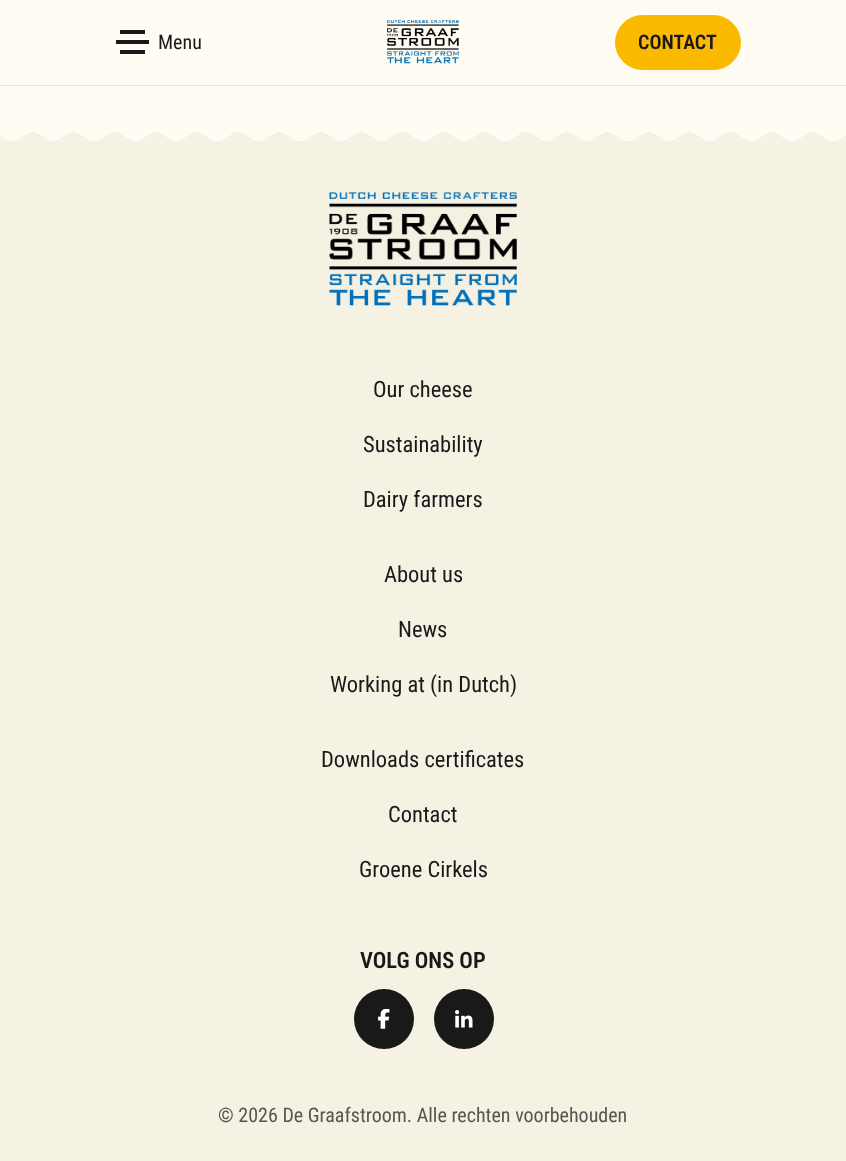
<svg xmlns="http://www.w3.org/2000/svg" width="846" height="1161" viewBox="0 0 846 1161">
  <rect width="100%" height="100%" fill="rgb(255,252,243)"/>
  <rect x="-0.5" y="-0.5" width="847" height="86" fill="none" stroke="rgb(230,227,219)"/>
  <rect x="120" y="30" width="25" height="4" fill="rgb(26,25,25)"/>
  <rect x="116" y="40" width="33" height="4" fill="rgb(26,25,25)"/>
  <rect x="120" y="50" width="25" height="4" fill="rgb(26,25,25)"/>
  <text x="158" y="49" font-family="Roboto Condensed" font-size="20" fill="rgb(26,25,25)">Menu</text>
  <image x="387" y="20" width="72" height="44" href="pic1.png"/>
  <rect x="615.5" y="15.5" width="125" height="54" rx="27" fill="rgb(251,186,0)" stroke="rgb(251,186,0)"/>
  <text x="638" y="49" font-family="Roboto Condensed" font-size="20" font-weight="600" fill="rgb(26,25,25)">CONTACT</text>
  <image x="0" y="132" width="846" height="9" href="pic2.png"/>
  <rect x="0" y="141" width="846" height="1020" fill="rgb(245,242,228)"/>
  <image x="329" y="191" width="188" height="115" href="pic3.png"/>
  <g font-family="Roboto Condensed" font-size="22.5" fill="rgb(26,25,25)">
    <text x="373" y="397">Our cheese</text>
    <text x="363" y="452">Sustainability</text>
    <text x="363" y="507">Dairy farmers</text>
    <text x="384" y="582">About us</text>
    <text x="398" y="637">News</text>
    <text x="330" y="692">Working at (in Dutch)</text>
    <text x="321" y="767">Downloads certificates</text>
    <text x="388" y="822">Contact</text>
    <text x="359" y="877">Groene Cirkels</text>
  </g>
  <text x="360" y="968" font-family="Roboto Condensed" font-size="22.5" font-weight="600" fill="rgb(26,25,25)">VOLG ONS OP</text>
  <circle cx="384" cy="1019" r="30" fill="rgb(26,25,25)"/>
  <image x="378" y="1009" width="12" height="20" href="pic4.png"/>
  <circle cx="464" cy="1019" r="30" fill="rgb(26,25,25)"/>
  <image x="455" y="1010" width="18" height="18" href="pic5.png"/>
  <text x="218" y="1122" font-family="Roboto Condensed" font-size="20" fill="rgb(88,85,81)">© 2026 De Graafstroom. Alle rechten voorbehouden</text>
</svg>
